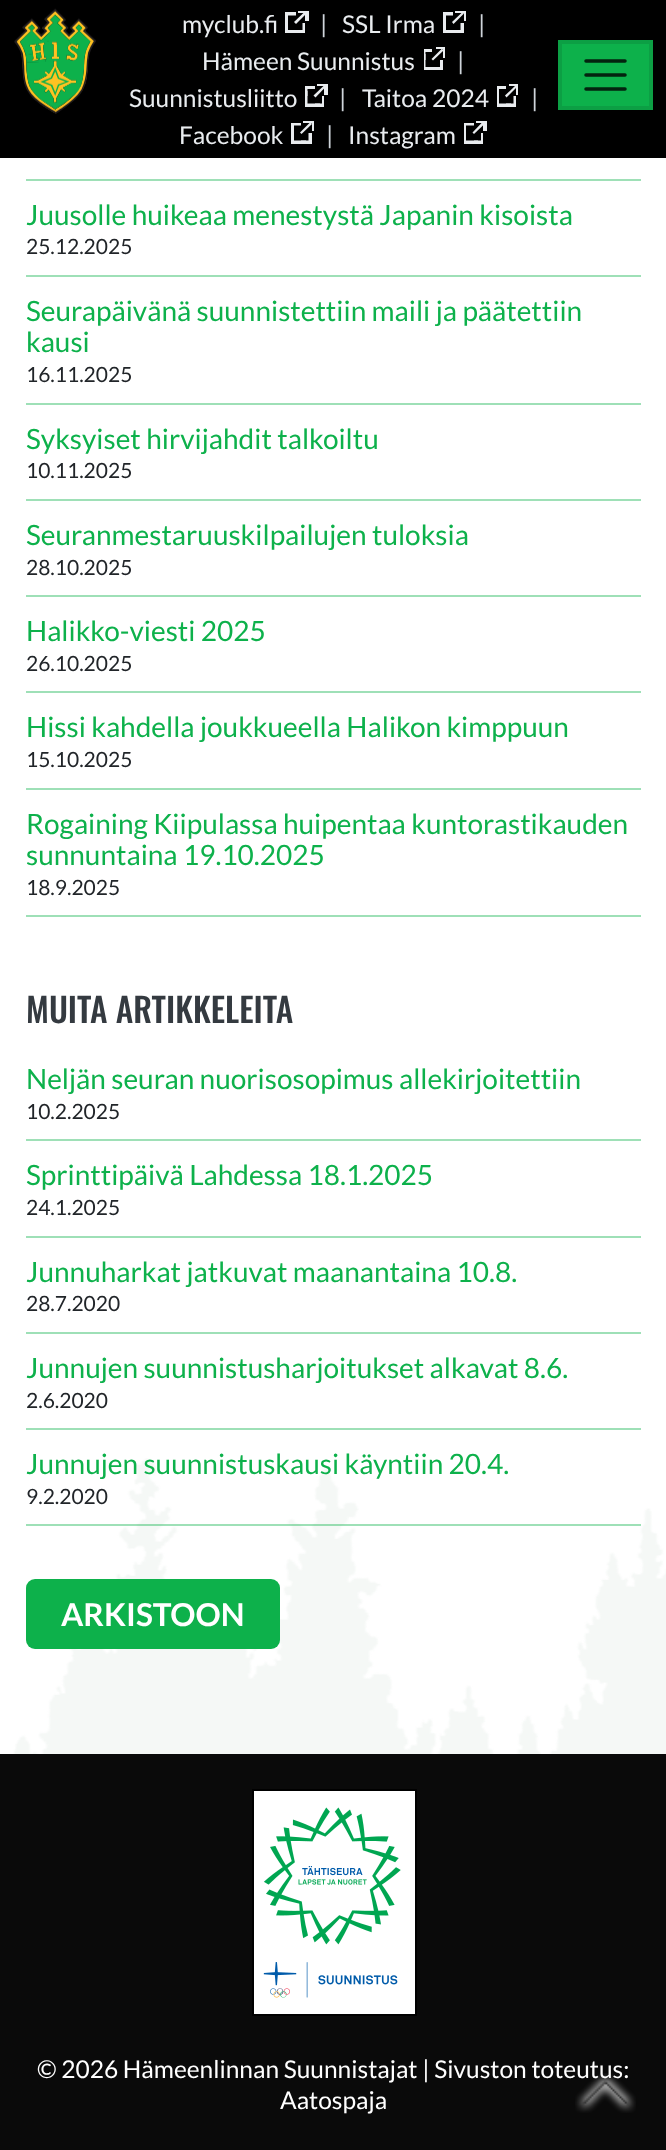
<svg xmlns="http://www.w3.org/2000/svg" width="666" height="2150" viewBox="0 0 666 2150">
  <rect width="100%" height="100%" fill="rgb(255,255,255)"/>
  <image x="13" y="1458" width="653" height="296" href="pic1.png"/>
  <rect x="0" y="0" width="666" height="158" fill="rgb(0,0,0)"/>
  <image x="14" y="8" width="82" height="106" href="pic2.png"/>
  <rect x="560" y="42" width="91" height="66" fill="rgb(13,177,75)" stroke="rgb(12,159,68)" stroke-width="4"/>
  <path d="M586 61H625M586 75H625M586 89H625" fill="none" stroke="rgb(3,35,15)" stroke-width="3.5" stroke-linecap="round"/>
  <text x="182" y="33" font-family="Lato" font-size="24.5" fill="rgb(233,236,239)">myclub.fi</text>
  <path d="M296 30V33H305V23H302.5V30ZM285 12V23H288V15.5H296V12Z" fill="rgb(233,236,239)"/>
  <path d="M285 18V33H301V30H288V18Z" fill="rgb(233,236,239)"/>
  <path d="M294 22L304.5 12L306.5 13.5L296 24Z" fill="rgb(233,236,239)"/>
  <rect x="298" y="11" width="10" height="2" fill="rgb(233,236,239)"/>
  <rect x="305" y="11" width="4" height="10" fill="rgb(233,236,239)"/>
  <text x="320" y="33" font-family="Lato" font-size="24.5" fill="rgb(206,212,218)">|</text>
  <text x="342" y="33" font-family="Lato" font-size="24.5" fill="rgb(233,236,239)">SSL Irma</text>
  <path d="M453 30V33H464V23H460.5V30ZM443 12V23H446V15.5H453V12Z" fill="rgb(233,236,239)"/>
  <path d="M443 18V33H459V30H446V18Z" fill="rgb(233,236,239)"/>
  <path d="M452 22L462.5 12L464 13.5L453.5 24Z" fill="rgb(233,236,239)"/>
  <rect x="455" y="11" width="11" height="2" fill="rgb(233,236,239)"/>
  <rect x="464" y="11" width="2" height="10" fill="rgb(233,236,239)"/>
  <text x="478" y="33" font-family="Lato" font-size="24.5" fill="rgb(206,212,218)">|</text>
  <text x="202" y="70" font-family="Lato" font-size="24.5" fill="rgb(233,236,239)">Hämeen Suunnistus</text>
  <path d="M432 67V70H443V60H440V67ZM424 49V60H425.5V52H432V49Z" fill="rgb(233,236,239)"/>
  <path d="M424 54V70H438V67H425.5V54Z" fill="rgb(233,236,239)"/>
  <path d="M431.5 59L442 48.5L443.5 50.5L433 60.5Z" fill="rgb(233,236,239)"/>
  <rect x="436" y="47" width="9" height="2" fill="rgb(233,236,239)"/>
  <rect x="443" y="47" width="2" height="11" fill="rgb(233,236,239)"/>
  <text x="457" y="70" font-family="Lato" font-size="24.5" fill="rgb(206,212,218)">|</text>
  <text x="129" y="107" font-family="Lato" font-size="24.5" fill="rgb(233,236,239)">Suunnistusliitto</text>
  <path d="M315 103.5V107H324V96H322V103.5ZM305 86V96H307.5V89H315V86Z" fill="rgb(233,236,239)"/>
  <path d="M305 91V107H320V103.5H307.5V91Z" fill="rgb(233,236,239)"/>
  <path d="M313.5 95.5L324 85.5L325.5 87L315.5 97.5Z" fill="rgb(233,236,239)"/>
  <rect x="317" y="84" width="10" height="2" fill="rgb(233,236,239)"/>
  <rect x="324" y="84" width="4" height="11" fill="rgb(233,236,239)"/>
  <text x="339" y="107" font-family="Lato" font-size="24.5" fill="rgb(206,212,218)">|</text>
  <text x="362" y="107" font-family="Lato" font-size="24.5" fill="rgb(233,236,239)">Taitoa 2024</text>
  <path d="M506 103.5V107H516V96H513.5V103.5ZM497 86V96H499V89H506V86Z" fill="rgb(233,236,239)"/>
  <path d="M497 91V107H511V103.5H499V91Z" fill="rgb(233,236,239)"/>
  <path d="M505 95.5L515.5 85.5L517 87L506.5 97.5Z" fill="rgb(233,236,239)"/>
  <rect x="509" y="84" width="9" height="2" fill="rgb(233,236,239)"/>
  <rect x="516" y="84" width="2" height="11" fill="rgb(233,236,239)"/>
  <text x="531" y="107" font-family="Lato" font-size="24.5" fill="rgb(206,212,218)">|</text>
  <text x="179" y="144" font-family="Lato" font-size="24.5" fill="rgb(233,236,239)">Facebook</text>
  <path d="M301 140.5V144H312V133H308.5V140.5ZM291 123V133H294V125.5H301V123Z" fill="rgb(233,236,239)"/>
  <path d="M291 128V144H306V140.5H294V128Z" fill="rgb(233,236,239)"/>
  <path d="M300 132.5L310.5 122L312 124L301.5 134Z" fill="rgb(233,236,239)"/>
  <rect x="303" y="121" width="10" height="2" fill="rgb(233,236,239)"/>
  <rect x="312" y="121" width="2" height="10" fill="rgb(233,236,239)"/>
  <text x="326" y="144" font-family="Lato" font-size="24.5" fill="rgb(206,212,218)">|</text>
  <text x="348" y="144" font-family="Lato" font-size="24.5" fill="rgb(233,236,239)">Instagram</text>
  <path d="M474 140.5V144H483V133H481V140.5ZM464 123V133H466V125.5H474V123Z" fill="rgb(233,236,239)"/>
  <path d="M464 128V144H478V140.5H466V128Z" fill="rgb(233,236,239)"/>
  <path d="M472.5 132.5L482.5 122L484.5 124L474 134Z" fill="rgb(233,236,239)"/>
  <rect x="476" y="121" width="11" height="2" fill="rgb(233,236,239)"/>
  <rect x="483" y="121" width="4" height="10" fill="rgb(233,236,239)"/>
  <rect x="26" y="179" width="615" height="2" fill="rgb(158,224,183)"/>
  <rect x="26" y="275" width="615" height="2" fill="rgb(158,224,183)"/>
  <text x="26" y="225" font-family="Lato" font-size="28" fill="rgb(13,177,75)">Juusolle huikeaa menestystä Japanin kisoista</text>
  <text x="26" y="254" font-family="Lato" font-size="21" fill="rgb(33,37,41)">25.12.2025</text>
  <rect x="26" y="403" width="615" height="2" fill="rgb(158,224,183)"/>
  <g font-family="Lato" font-size="28" fill="rgb(13,177,75)">
    <text>
      <tspan x="26" y="321">Seurapäivänä suunnistettiin maili ja päätettiin</tspan>
      <tspan x="26" y="352">kausi</tspan>
    </text>
  </g>
  <text x="26" y="382" font-family="Lato" font-size="21" fill="rgb(33,37,41)">16.11.2025</text>
  <rect x="26" y="499" width="615" height="2" fill="rgb(158,224,183)"/>
  <text x="26" y="449" font-family="Lato" font-size="28" fill="rgb(13,177,75)">Syksyiset hirvijahdit talkoiltu</text>
  <text x="26" y="478" font-family="Lato" font-size="21" fill="rgb(33,37,41)">10.11.2025</text>
  <rect x="26" y="595" width="615" height="2" fill="rgb(158,224,183)"/>
  <text x="26" y="545" font-family="Lato" font-size="28" fill="rgb(13,177,75)">Seuranmestaruuskilpailujen tuloksia</text>
  <text x="26" y="575" font-family="Lato" font-size="21" fill="rgb(33,37,41)">28.10.2025</text>
  <rect x="26" y="691" width="615" height="2" fill="rgb(158,224,183)"/>
  <text x="26" y="641" font-family="Lato" font-size="28" fill="rgb(13,177,75)">Halikko-viesti 2025</text>
  <text x="26" y="671" font-family="Lato" font-size="21" fill="rgb(33,37,41)">26.10.2025</text>
  <rect x="26" y="788" width="615" height="2" fill="rgb(158,224,183)"/>
  <text x="26" y="737" font-family="Lato" font-size="28" fill="rgb(13,177,75)">Hissi kahdella joukkueella Halikon kimppuun</text>
  <text x="26" y="767" font-family="Lato" font-size="21" fill="rgb(33,37,41)">15.10.2025</text>
  <rect x="26" y="915" width="615" height="2" fill="rgb(158,224,183)"/>
  <g font-family="Lato" font-size="28" fill="rgb(13,177,75)">
    <text>
      <tspan x="26" y="834">Rogaining Kiipulassa huipentaa kuntorastikauden</tspan>
      <tspan x="26" y="865">sunnuntaina 19.10.2025</tspan>
    </text>
  </g>
  <text x="26" y="895" font-family="Lato" font-size="21" fill="rgb(33,37,41)">18.9.2025</text>
  <text x="26" y="1023" font-family="Oswald" font-size="33.5" font-weight="500" fill="rgb(52,58,64)">MUITA ARTIKKELEITA</text>
  <rect x="26" y="1139" width="615" height="2" fill="rgb(158,224,183)"/>
  <text x="26" y="1089" font-family="Lato" font-size="28" fill="rgb(13,177,75)">Neljän seuran nuorisosopimus allekirjoitettiin</text>
  <text x="26" y="1119" font-family="Lato" font-size="21" fill="rgb(33,37,41)">10.2.2025</text>
  <rect x="26" y="1236" width="615" height="2" fill="rgb(158,224,183)"/>
  <text x="26" y="1185" font-family="Lato" font-size="28" fill="rgb(13,177,75)">Sprinttipäivä Lahdessa 18.1.2025</text>
  <text x="26" y="1215" font-family="Lato" font-size="21" fill="rgb(33,37,41)">24.1.2025</text>
  <rect x="26" y="1332" width="615" height="2" fill="rgb(158,224,183)"/>
  <text x="26" y="1282" font-family="Lato" font-size="28" fill="rgb(13,177,75)">Junnuharkat jatkuvat maanantaina 10.8.</text>
  <text x="26" y="1311" font-family="Lato" font-size="21" fill="rgb(33,37,41)">28.7.2020</text>
  <rect x="26" y="1428" width="615" height="2" fill="rgb(158,224,183)"/>
  <text x="26" y="1378" font-family="Lato" font-size="28" fill="rgb(13,177,75)">Junnujen suunnistusharjoitukset alkavat 8.6.</text>
  <text x="26" y="1408" font-family="Lato" font-size="21" fill="rgb(33,37,41)">2.6.2020</text>
  <rect x="26" y="1524" width="615" height="2" fill="rgba(13,177,75,0.4)"/>
  <text x="26" y="1474" font-family="Lato" font-size="28" fill="rgb(13,177,75)">Junnujen suunnistuskausi käyntiin 20.4.</text>
  <text x="26" y="1504" font-family="Lato" font-size="21" fill="rgb(33,37,41)">9.2.2020</text>
  <rect x="26" y="1579" width="254" height="70" rx="9" fill="rgb(13,177,75)"/>
  <text x="61" y="1626" font-family="Lato" font-size="31.5" font-weight="bold" fill="rgb(255,255,255)">ARKISTOON</text>
  <rect x="0" y="1754" width="666" height="396" fill="rgb(10,10,10)"/>
  <image x="252" y="1789" width="165" height="227" href="pic3.png"/>
  <g font-family="Lato" font-size="24.5" fill="rgb(255,255,255)">
    <text x="37" y="2078">© 2026 Hämeenlinnan Suunnistajat | Sivuston toteutus:</text>
    <text x="280" y="2109">Aatospaja</text>
  </g>
  <image x="575" y="2073" width="61" height="40" href="pic4.png"/>
</svg>
